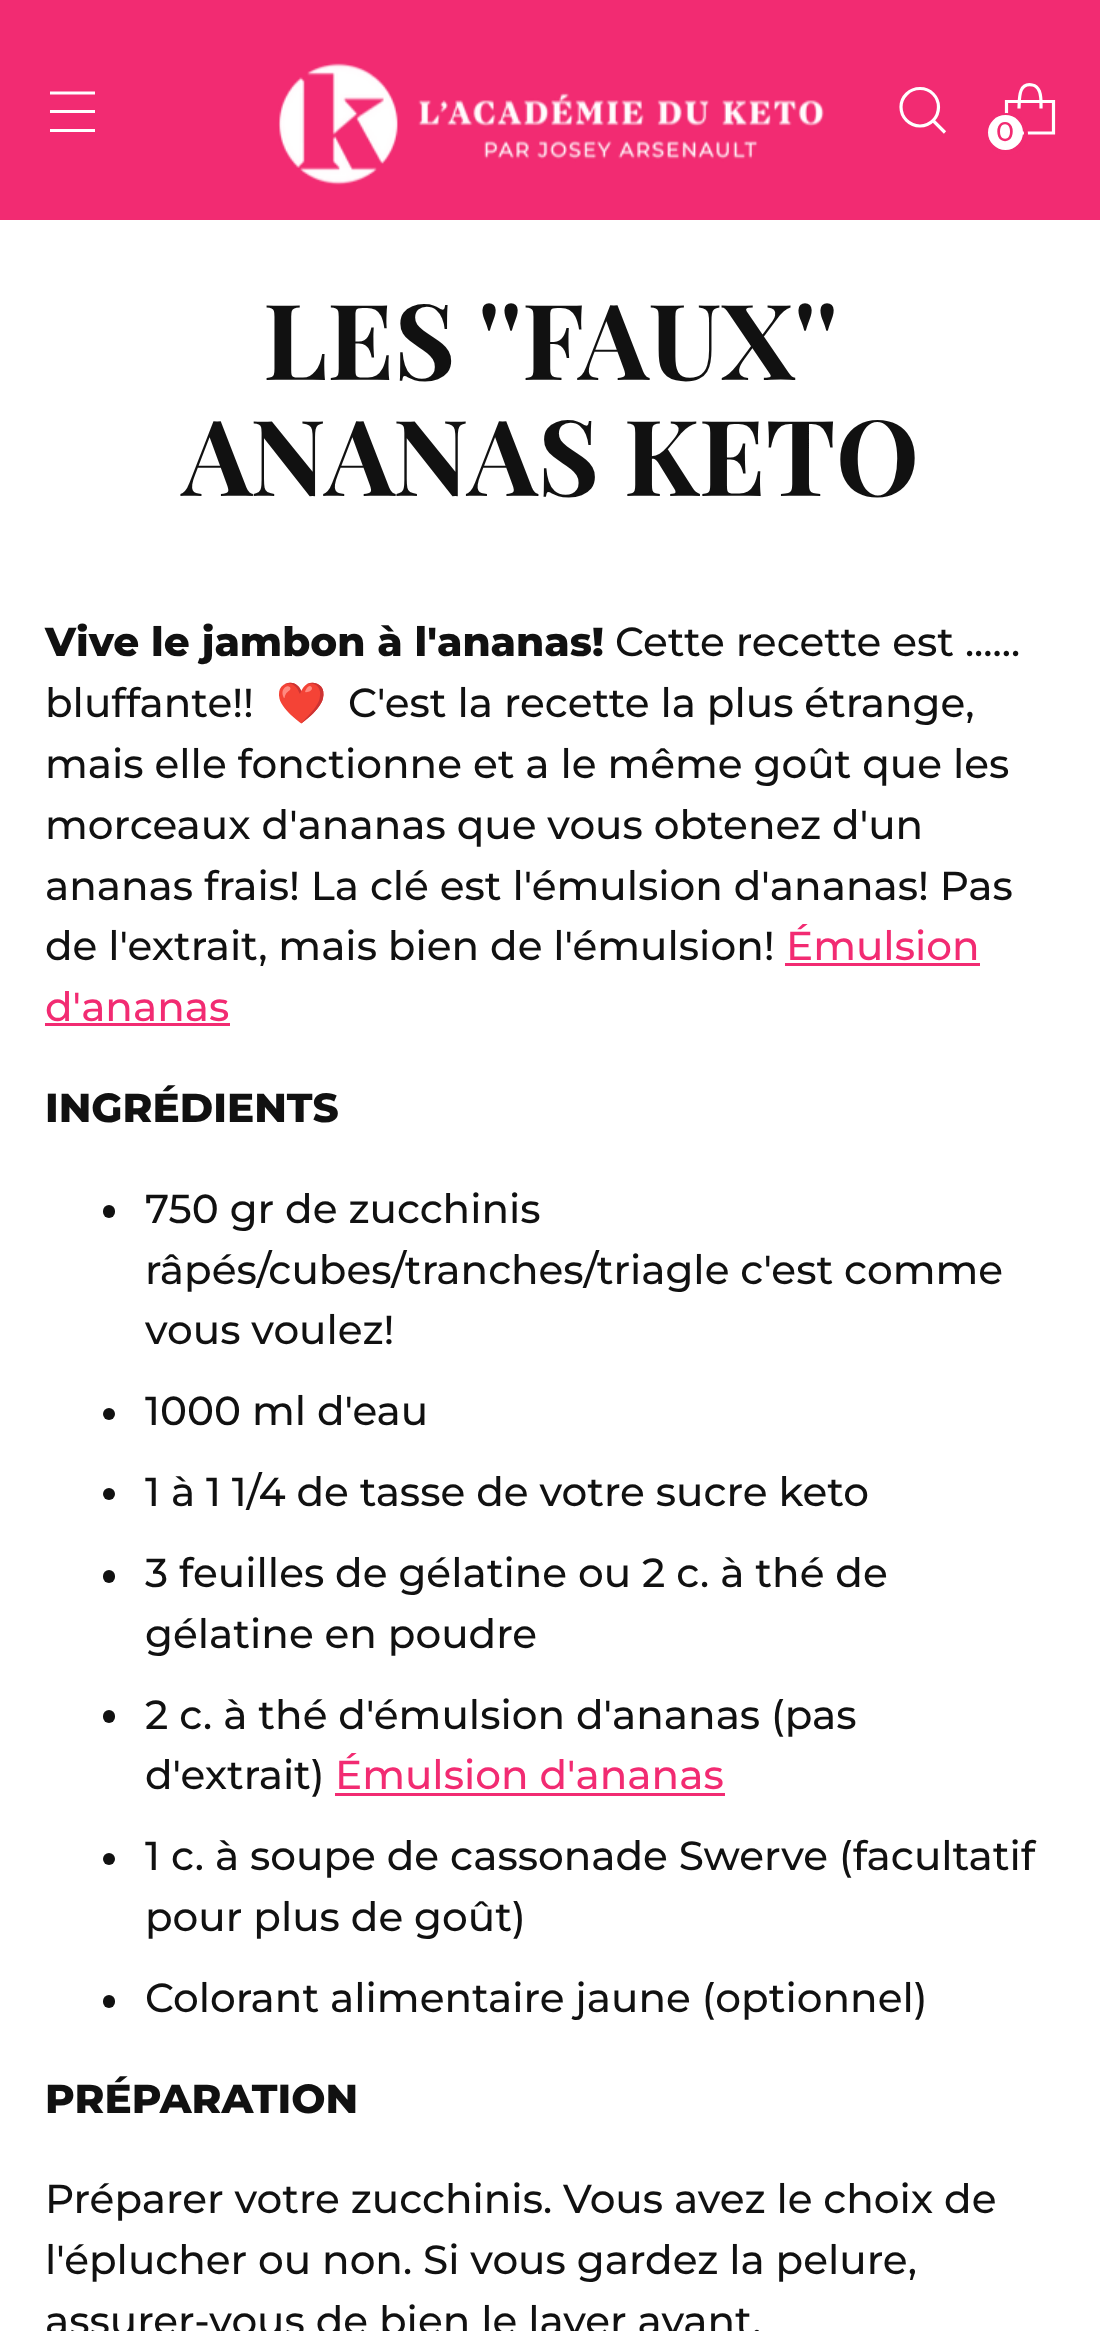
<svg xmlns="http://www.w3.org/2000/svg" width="1100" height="2331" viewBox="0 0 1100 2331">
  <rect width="100%" height="100%" fill="rgb(255,255,255)"/>
  <rect x="0" y="0" width="1100" height="220" fill="rgb(242,43,114)"/>
  <path d="M50 111.5H95M50 93H95M50 130.5H95" fill="none" stroke="rgb(255,255,255)" stroke-width="3.2"/>
  <image x="278" y="63" width="546" height="122" href="pic1.png"/>
  <path d="M920 126C930.5 126 938.5 117.5 938.5 107C938.5 97 930.5 88.5 920 88.5C909.5 88.5 901 97 901 107C901 117.5 909.5 126 920 126Z" fill="none" stroke="rgb(255,255,255)" stroke-width="3.2" stroke-linecap="round"/>
  <path d="M933.5 121L945 132.5" fill="none" stroke="rgb(255,255,255)" stroke-width="3.2"/>
  <path d="M1041 108.5C1041 103 1041.5 97 1039.5 91.5C1038 88 1036 85.5 1032.5 85C1018 82 1019.5 99.5 1019 108.5" fill="none" stroke="rgb(255,255,255)" stroke-width="3.2" stroke-linejoin="bevel"/>
  <path d="M1053.5 133V101.5H1006.5V133Z" fill="none" stroke="rgb(255,255,255)" stroke-width="3.2"/>
  <rect x="987" y="115" width="39" height="38" rx="19" fill="none" stroke="rgb(242,43,114)" stroke-width="4"/>
  <circle cx="1005.5" cy="132.5" r="17.5" fill="rgb(255,255,255)"/>
  <text x="996" y="141" font-family="Montserrat" font-size="27" font-weight="100" fill="rgb(242,43,114)">0</text>
  <g font-family="Playfair Display" font-size="105.25" font-weight="bold" fill="rgb(17,17,17)">
    <text x="263" y="380">LES ''FAUX''</text>
    <text x="182" y="496">ANANAS KETO</text>
  </g>
  <text x="45" y="656" font-family="Montserrat" font-size="40.5" font-weight="800" fill="rgb(17,17,17)">Vive le jambon à l'ananas!</text>
  <g font-family="Montserrat" font-size="40.5" font-weight="100" fill="rgb(17,17,17)">
    <text x="615" y="656">Cette recette est ......</text>
    <text x="45" y="717">bluffante!!</text>
  </g>
  <text x="276" y="717" font-family="Noto Color Emoji" font-size="40.5" fill="rgb(17,17,17)">❤️</text>
  <g font-family="Montserrat" font-size="40.5" font-weight="100" fill="rgb(17,17,17)">
    <text x="348" y="717">C'est la recette la plus étrange,</text>
    <text>
      <tspan x="45" y="778">mais elle fonctionne et a le même goût que les</tspan>
      <tspan x="45" y="839">morceaux d'ananas que vous obtenez d'un</tspan>
      <tspan x="45" y="900">ananas frais! La clé est l'émulsion d'ananas! Pas</tspan>
      <tspan x="45" y="960">de l'extrait, mais bien de l'émulsion!</tspan>
    </text>
  </g>
  <text x="786" y="960" font-family="Montserrat" font-size="40.5" font-weight="100" fill="rgb(242,43,114)">Émulsion</text>
  <rect x="785" y="963" width="195" height="3" fill="rgb(242,43,114)"/>
  <text x="45" y="1021" font-family="Montserrat" font-size="40.5" font-weight="100" fill="rgb(242,43,114)">d'ananas</text>
  <rect x="45" y="1023" width="185" height="3" fill="rgb(242,43,114)"/>
  <text x="45" y="1122" font-family="Montserrat" font-size="40.5" font-weight="800" fill="rgb(17,17,17)">INGRÉDIENTS</text>
  <rect x="103" y="1205" width="12" height="13" rx="6" fill="rgb(17,17,17)"/>
  <g font-family="Montserrat" font-size="40.5" font-weight="100" fill="rgb(17,17,17)">
    <text>
      <tspan x="145" y="1223">750 gr de zucchinis</tspan>
      <tspan x="145" y="1284">râpés/cubes/tranches/triagle c'est comme</tspan>
      <tspan x="145" y="1344">vous voulez!</tspan>
    </text>
  </g>
  <circle cx="109" cy="1414" r="6" fill="rgb(17,17,17)"/>
  <text x="145" y="1425" font-family="Montserrat" font-size="40.5" font-weight="100" fill="rgb(17,17,17)">1000 ml d'eau</text>
  <circle cx="109" cy="1494" r="6" fill="rgb(17,17,17)"/>
  <text x="145" y="1506" font-family="Montserrat" font-size="40.5" font-weight="100" fill="rgb(17,17,17)">1 à 1 1/4 de tasse de votre sucre keto</text>
  <rect x="103" y="1570" width="12" height="13" rx="6" fill="rgb(17,17,17)"/>
  <g font-family="Montserrat" font-size="40.5" font-weight="100" fill="rgb(17,17,17)">
    <text>
      <tspan x="145" y="1587">3 feuilles de gélatine ou 2 c. à thé de</tspan>
      <tspan x="145" y="1648">gélatine en poudre</tspan>
    </text>
  </g>
  <rect x="103" y="1710" width="12" height="13" rx="6" fill="rgb(17,17,17)"/>
  <g font-family="Montserrat" font-size="40.5" font-weight="100" fill="rgb(17,17,17)">
    <text>
      <tspan x="145" y="1729">2 c. à thé d'émulsion d'ananas (pas</tspan>
      <tspan x="145" y="1789">d'extrait)</tspan>
    </text>
  </g>
  <text x="335" y="1789" font-family="Montserrat" font-size="40.5" font-weight="100" fill="rgb(242,43,114)">Émulsion d'ananas</text>
  <rect x="335" y="1793" width="390" height="3" fill="rgb(242,43,114)"/>
  <circle cx="109" cy="1859" r="6" fill="rgb(17,17,17)"/>
  <g font-family="Montserrat" font-size="40.5" font-weight="100" fill="rgb(17,17,17)">
    <text>
      <tspan x="145" y="1870">1 c. à soupe de cassonade Swerve (facultatif</tspan>
      <tspan x="145" y="1931">pour plus de goût)</tspan>
    </text>
  </g>
  <rect x="103" y="1995" width="12" height="13" rx="6" fill="rgb(17,17,17)"/>
  <text x="145" y="2012" font-family="Montserrat" font-size="40.5" font-weight="100" fill="rgb(17,17,17)">Colorant alimentaire jaune (optionnel)</text>
  <text x="45" y="2113" font-family="Montserrat" font-size="40.5" font-weight="800" fill="rgb(17,17,17)">PRÉPARATION</text>
  <g font-family="Montserrat" font-size="40.5" font-weight="100" fill="rgb(17,17,17)">
    <text>
      <tspan x="45" y="2213">Préparer votre zucchinis. Vous avez le choix de</tspan>
      <tspan x="45" y="2274">l'éplucher ou non. Si vous gardez la pelure,</tspan>
      <tspan x="45" y="2335">assurer-vous de bien le laver avant.</tspan>
    </text>
  </g>
</svg>
